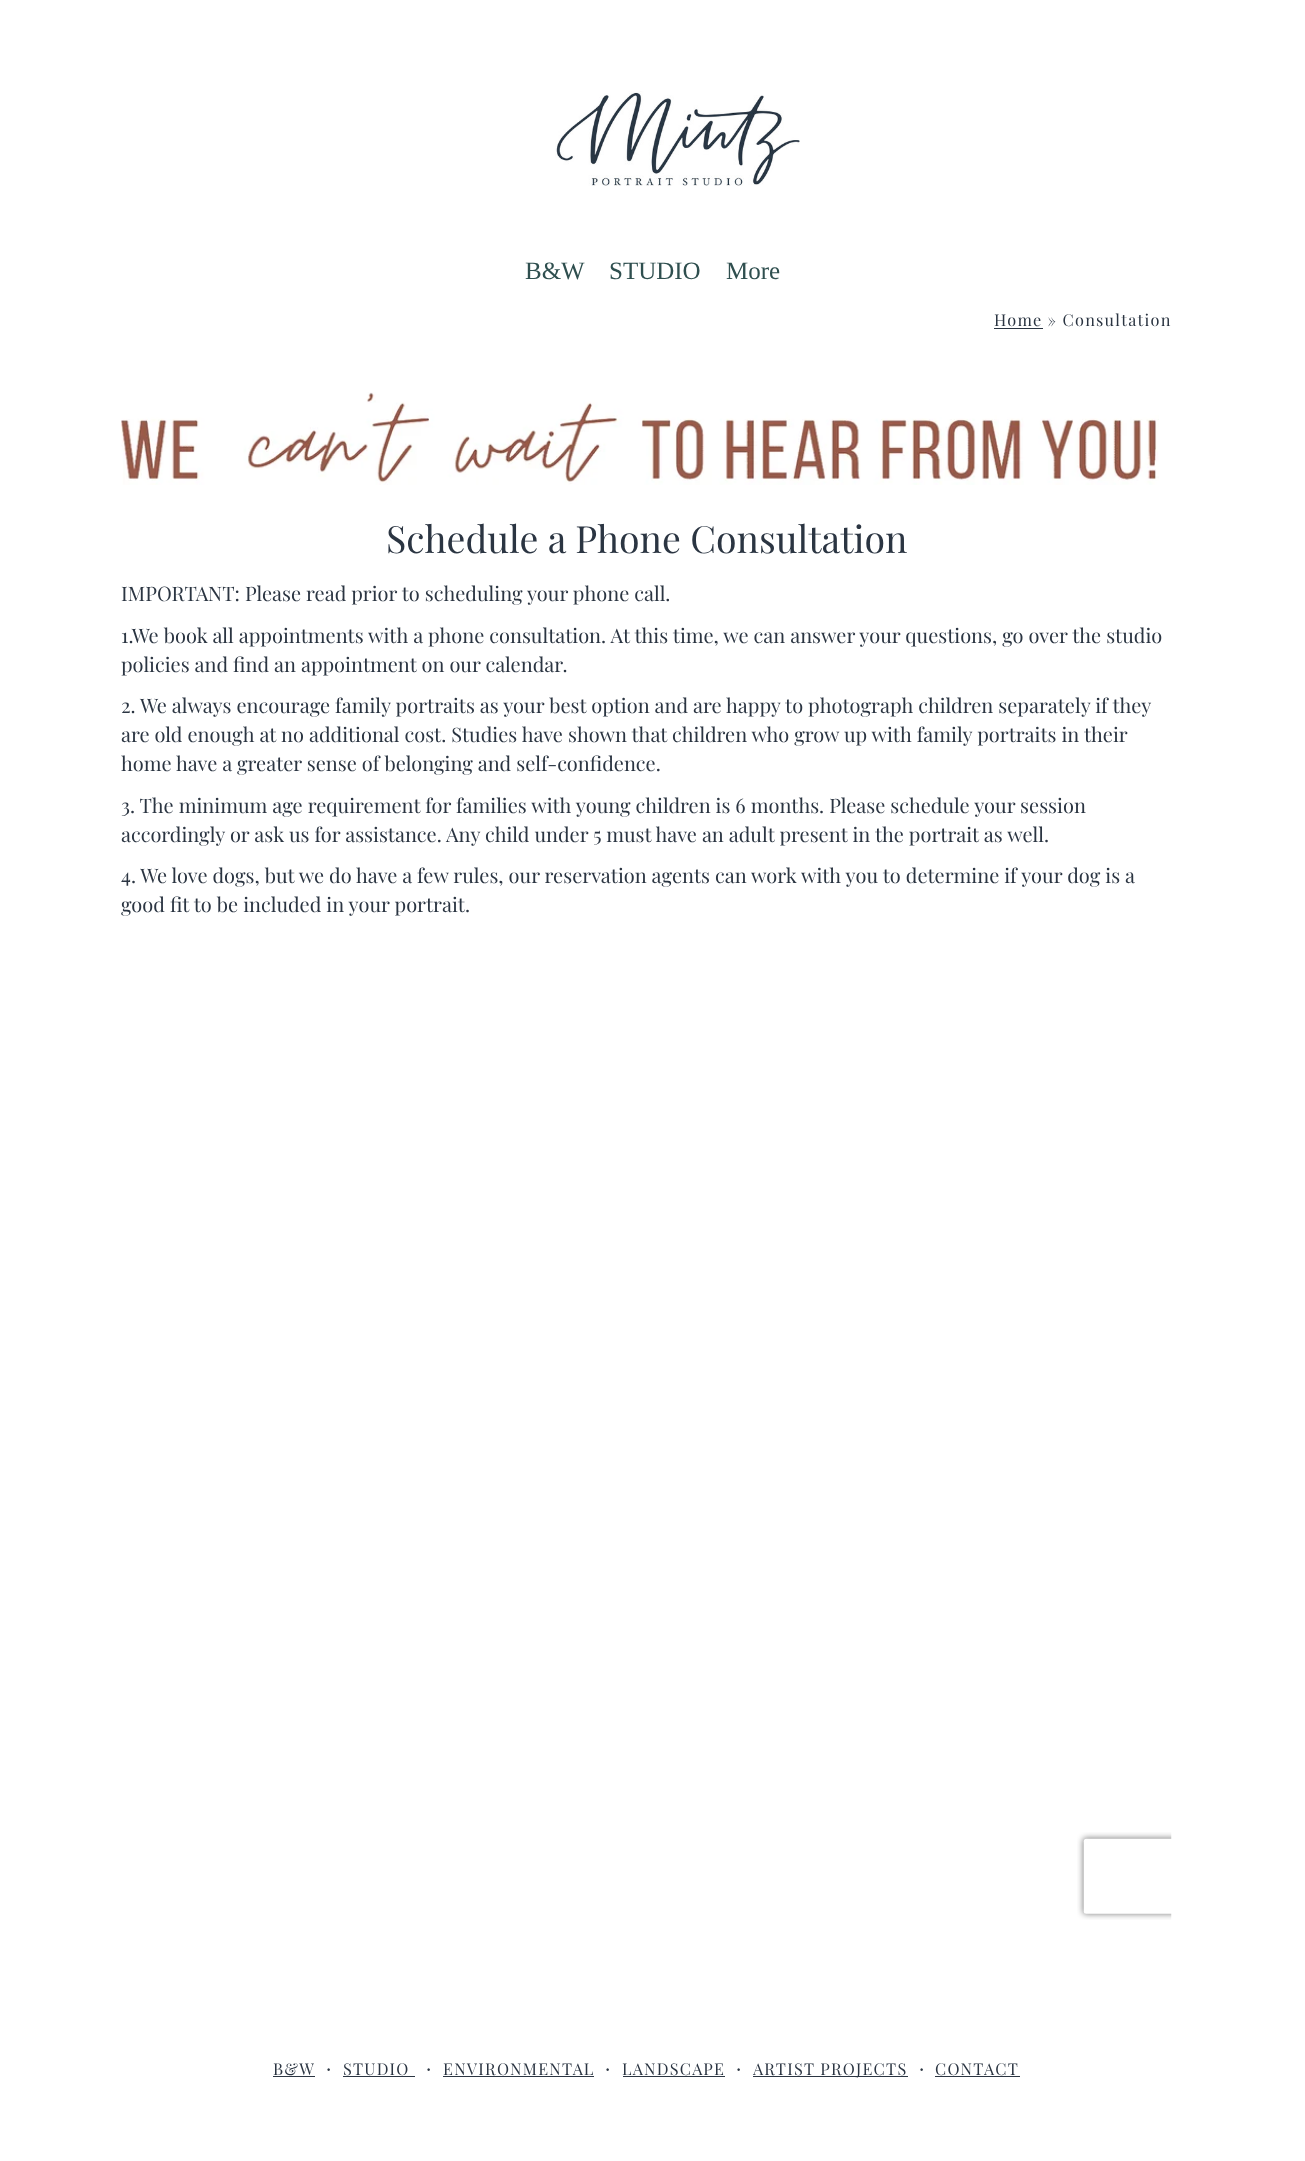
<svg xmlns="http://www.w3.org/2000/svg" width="1305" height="2161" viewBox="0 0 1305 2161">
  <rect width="100%" height="100%" fill="rgb(255,255,255)"/>
  <image x="555" y="91" width="245" height="95" href="pic1.png"/>
  <g font-family="Liberation Serif" font-size="25" fill="rgb(47,79,79)">
    <text x="525" y="279">B&amp;W</text>
    <text x="609" y="279">STUDIO</text>
    <text x="726" y="279">More</text>
  </g>
  <text x="994" y="326" font-family="Playfair Display" font-size="16.25" letter-spacing="1.25" fill="rgb(43,53,66)">Home » Consultation</text>
  <rect x="994" y="328" width="49" height="1" fill="rgb(43,53,66)"/>
  <image x="121" y="392" width="1038" height="93" href="pic2.png"/>
  <text x="386" y="553" font-family="Playfair Display" font-size="37.5" fill="rgb(43,53,66)">Schedule a Phone Consultation</text>
  <g font-family="Playfair Display" font-size="20" fill="rgb(43,53,66)">
    <text x="121" y="601">IMPORTANT: Please read prior to scheduling your phone call.</text>
    <text>
      <tspan x="121" y="643">1.We book all appointments with a phone consultation. At this time, we can answer your questions, go over the studio</tspan>
      <tspan x="121" y="672">policies and find an appointment on our calendar.</tspan>
    </text>
    <text>
      <tspan x="121" y="713">2. We always encourage family portraits as your best option and are happy to photograph children separately if they</tspan>
      <tspan x="121" y="742">are old enough at no additional cost. Studies have shown that children who grow up with family portraits in their</tspan>
      <tspan x="121" y="771">home have a greater sense of belonging and self-confidence.</tspan>
    </text>
    <text>
      <tspan x="121" y="813">3. The minimum age requirement for families with young children is 6 months. Please schedule your session</tspan>
      <tspan x="121" y="842">accordingly or ask us for assistance. Any child under 5 must have an adult present in the portrait as well.</tspan>
    </text>
    <text>
      <tspan x="121" y="883">4. We love dogs, but we do have a few rules, our reservation agents can work with you to determine if your dog is a</tspan>
      <tspan x="121" y="912">good fit to be included in your portrait.</tspan>
    </text>
  </g>
  <image x="1077" y="1832" width="95" height="88" href="pic3.png"/>
  <text x="273" y="2075" font-family="Playfair Display" font-size="16.25" letter-spacing="1.25" fill="rgb(43,53,66)">B&amp;W</text>
  <rect x="273" y="2076" width="42" height="1" fill="rgb(43,53,66)"/>
  <text x="326" y="2075" font-family="Playfair Display" font-size="20" fill="rgb(43,53,66)">·</text>
  <text x="343" y="2075" font-family="Playfair Display" font-size="16.25" letter-spacing="1.25" fill="rgb(43,53,66)">STUDIO</text>
  <rect x="343" y="2076" width="72" height="1" fill="rgb(43,53,66)"/>
  <text x="426" y="2075" font-family="Playfair Display" font-size="20" fill="rgb(43,53,66)">·</text>
  <text x="443" y="2075" font-family="Playfair Display" font-size="16.25" letter-spacing="1.25" fill="rgb(43,53,66)">ENVIRONMENTAL</text>
  <rect x="443" y="2076" width="151" height="1" fill="rgb(43,53,66)"/>
  <text x="605" y="2075" font-family="Playfair Display" font-size="20" fill="rgb(43,53,66)">·</text>
  <text x="622" y="2075" font-family="Playfair Display" font-size="16.25" letter-spacing="1.25" fill="rgb(43,53,66)">LANDSCAPE</text>
  <rect x="623" y="2076" width="102" height="1" fill="rgb(43,53,66)"/>
  <text x="736" y="2075" font-family="Playfair Display" font-size="20" fill="rgb(43,53,66)">·</text>
  <rect x="753" y="2076" width="155" height="1" fill="rgb(43,53,66)"/>
  <text x="753" y="2075" font-family="Playfair Display" font-size="16.25" letter-spacing="1.25" fill="rgb(43,53,66)">ARTIST PROJECTS</text>
  <text x="919" y="2075" font-family="Playfair Display" font-size="20" fill="rgb(43,53,66)">·</text>
  <text x="935" y="2075" font-family="Playfair Display" font-size="16.25" letter-spacing="1.25" fill="rgb(43,53,66)">CONTACT</text>
  <rect x="935" y="2076" width="85" height="1" fill="rgb(43,53,66)"/>
</svg>
